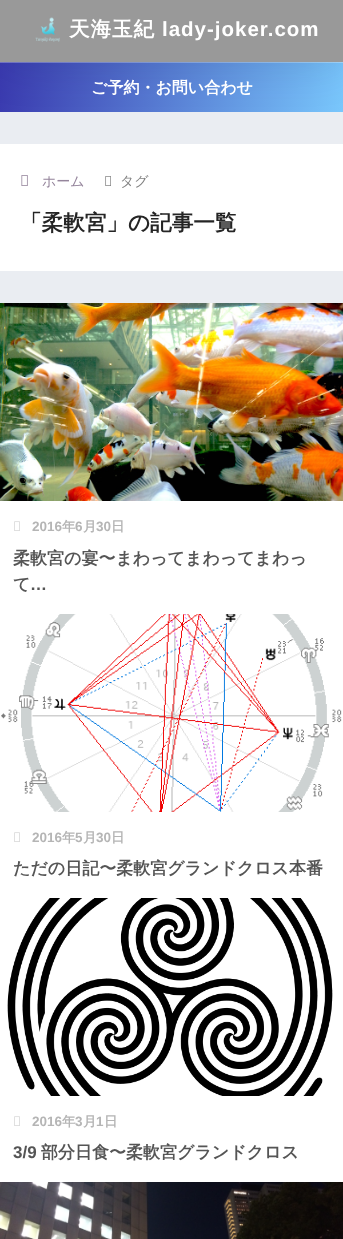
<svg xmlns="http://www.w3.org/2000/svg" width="343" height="1239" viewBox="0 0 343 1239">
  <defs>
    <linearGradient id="g1" gradientUnits="userSpaceOnUse" x1="-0.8" y1="23" x2="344" y2="54"><stop offset="0" stop-color="rgb(117,117,199)"/><stop offset="1" stop-color="rgb(161,216,253)"/></linearGradient>
    <linearGradient id="g2" gradientUnits="userSpaceOnUse" x1="-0.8" y1="72" x2="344" y2="103"><stop offset="0" stop-color="rgb(58,58,175)"/><stop offset="1" stop-color="rgb(121,199,252)"/></linearGradient>
  </defs>
  <rect width="100%" height="100%" fill="rgb(234,237,242)"/>
  <rect x="0" y="62" width="343" height="1" fill="url(#g1)"/>
  <rect x="0" y="63" width="343" height="49" fill="url(#g2)"/>
  <rect x="0" y="0" width="343" height="62" fill="rgba(0,12,66,0.15)" filter="blur(22.5px)"/>
  <rect x="0" y="0" width="343" height="62" fill="rgb(153,153,153)"/>
  <image x="35" y="17" width="25" height="25" href="pic1.png"/>
  <text x="69" y="36" font-family="WenQuanYi Zen Hei" font-size="20.5" font-weight="bold" letter-spacing="1" fill="rgb(255,255,255)">天海玉紀</text>
  <text x="162" y="36" font-family="Liberation Sans" font-size="20.5" font-weight="bold" letter-spacing="1" fill="rgb(255,255,255)">lady-joker.com</text>
  <text x="91" y="93" font-family="WenQuanYi Zen Hei" font-size="16" font-weight="bold" fill="rgb(255,255,255)">ご予約・お問い合わせ</text>
  <rect x="0" y="144" width="343" height="127" fill="rgb(255,255,255)"/>
  <image x="21" y="175" width="7" height="11" href="pic2.png"/>
  <text x="42" y="186" font-family="WenQuanYi Zen Hei" font-size="14" font-weight="500" fill="rgb(149,133,156)">ホーム</text>
  <image x="105" y="176" width="6" height="10" href="pic3.png"/>
  <text x="120" y="186" font-family="WenQuanYi Zen Hei" font-size="14" font-weight="500" fill="rgb(128,128,128)">タグ</text>
  <text x="20" y="230" font-family="WenQuanYi Zen Hei" font-size="21.6" font-weight="bold" fill="rgb(37,37,37)">「柔軟宮」の記事一覧</text>
  <rect x="0" y="501" width="343" height="681" fill="rgb(255,255,255)"/>
  <image x="0" y="303" width="343" height="198" href="pic4.png"/>
  <image x="14" y="521" width="6" height="10" href="pic5.png"/>
  <text x="32" y="531" font-family="Liberation Sans" font-size="13.5" font-weight="bold" fill="rgb(181,181,181)">2016</text>
  <text x="62" y="531" font-family="WenQuanYi Zen Hei" font-size="13.5" font-weight="bold" fill="rgb(181,181,181)">年</text>
  <text x="75" y="531" font-family="Liberation Sans" font-size="13.5" font-weight="bold" fill="rgb(181,181,181)">6</text>
  <text x="83" y="531" font-family="WenQuanYi Zen Hei" font-size="13.5" font-weight="bold" fill="rgb(181,181,181)">月</text>
  <text x="96" y="531" font-family="Liberation Sans" font-size="13.5" font-weight="bold" fill="rgb(181,181,181)">30</text>
  <text x="111" y="531" font-family="WenQuanYi Zen Hei" font-size="13.5" font-weight="bold" fill="rgb(181,181,181)">日</text>
  <g font-family="WenQuanYi Zen Hei" font-size="17" font-weight="bold" fill="rgb(85,85,85)">
    <text>
      <tspan x="13" y="564">柔軟宮の宴〜まわってまわってまわっ</tspan>
      <tspan x="13" y="590">て</tspan>
    </text>
  </g>
  <text x="30" y="590" font-family="Liberation Sans" font-size="17" font-weight="bold" fill="rgb(85,85,85)">…</text>
  <image x="1" y="614" width="341" height="198" href="pic6.png"/>
  <image x="14" y="832" width="6" height="10" href="pic5.png"/>
  <text x="32" y="842" font-family="Liberation Sans" font-size="13.5" font-weight="bold" fill="rgb(181,181,181)">2016</text>
  <text x="62" y="842" font-family="WenQuanYi Zen Hei" font-size="13.5" font-weight="bold" fill="rgb(181,181,181)">年</text>
  <text x="75" y="842" font-family="Liberation Sans" font-size="13.5" font-weight="bold" fill="rgb(181,181,181)">5</text>
  <text x="83" y="842" font-family="WenQuanYi Zen Hei" font-size="13.5" font-weight="bold" fill="rgb(181,181,181)">月</text>
  <text x="96" y="842" font-family="Liberation Sans" font-size="13.5" font-weight="bold" fill="rgb(181,181,181)">30</text>
  <text x="111" y="842" font-family="WenQuanYi Zen Hei" font-size="13.5" font-weight="bold" fill="rgb(181,181,181)">日</text>
  <text x="13" y="874" font-family="WenQuanYi Zen Hei" font-size="17" font-weight="bold" fill="rgb(85,85,85)">ただの日記〜柔軟宮グランドクロス本番</text>
  <image x="7" y="898" width="326" height="198" href="pic7.png"/>
  <image x="14" y="1116" width="6" height="10" href="pic5.png"/>
  <text x="32" y="1126" font-family="Liberation Sans" font-size="13.5" font-weight="bold" fill="rgb(181,181,181)">2016</text>
  <text x="62" y="1126" font-family="WenQuanYi Zen Hei" font-size="13.5" font-weight="bold" fill="rgb(181,181,181)">年</text>
  <text x="75" y="1126" font-family="Liberation Sans" font-size="13.5" font-weight="bold" fill="rgb(181,181,181)">3</text>
  <text x="83" y="1126" font-family="WenQuanYi Zen Hei" font-size="13.5" font-weight="bold" fill="rgb(181,181,181)">月</text>
  <text x="96" y="1126" font-family="Liberation Sans" font-size="13.5" font-weight="bold" fill="rgb(181,181,181)">1</text>
  <text x="104" y="1126" font-family="WenQuanYi Zen Hei" font-size="13.5" font-weight="bold" fill="rgb(181,181,181)">日</text>
  <text x="13" y="1158" font-family="Liberation Sans" font-size="17" font-weight="bold" fill="rgb(85,85,85)">3/9</text>
  <text x="41" y="1158" font-family="WenQuanYi Zen Hei" font-size="17" font-weight="bold" fill="rgb(85,85,85)">部分日食〜柔軟宮グランドクロス</text>
  <image x="0" y="1182" width="343" height="57" href="pic8.png"/>
</svg>
